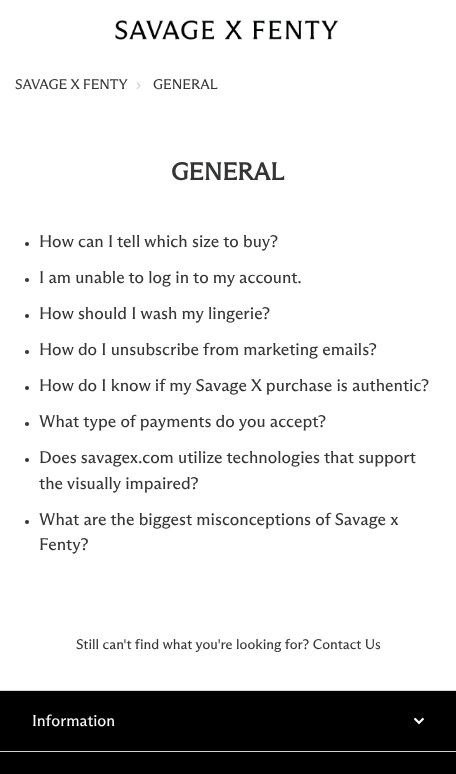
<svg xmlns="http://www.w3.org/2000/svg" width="456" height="774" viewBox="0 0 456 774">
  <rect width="100%" height="100%" fill="rgb(255,255,255)"/>
  <image x="115" y="20" width="224" height="20" href="pic1.png"/>
  <text x="15" y="89" font-family="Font" font-size="14" fill="rgb(51,53,54)">SAVAGE X FENTY</text>
  <text x="136" y="89" font-family="Font" font-size="14" fill="rgb(204,204,204)">›</text>
  <text x="153" y="89" font-family="Font" font-size="14" fill="rgb(51,53,54)">GENERAL</text>
  <text x="171" y="180" font-family="Font" font-size="24.5" font-weight="bold" fill="rgb(51,53,54)">GENERAL</text>
  <circle cx="27" cy="244" r="2" fill="rgb(51,53,54)"/>
  <text x="39" y="247" font-family="Font" font-size="17" fill="rgb(51,53,54)">How can I tell which size to buy?</text>
  <circle cx="27" cy="280" r="2" fill="rgb(51,53,54)"/>
  <text x="39" y="283" font-family="Font" font-size="17" fill="rgb(51,53,54)">I am unable to log in to my account.</text>
  <circle cx="27" cy="316" r="2" fill="rgb(51,53,54)"/>
  <text x="39" y="319" font-family="Font" font-size="17" fill="rgb(51,53,54)">How should I wash my lingerie?</text>
  <circle cx="27" cy="352" r="2" fill="rgb(51,53,54)"/>
  <text x="39" y="355" font-family="Font" font-size="17" fill="rgb(51,53,54)">How do I unsubscribe from marketing emails?</text>
  <circle cx="27" cy="388" r="2" fill="rgb(51,53,54)"/>
  <text x="39" y="391" font-family="Font" font-size="17" fill="rgb(51,53,54)">How do I know if my Savage X purchase is authentic?</text>
  <circle cx="27" cy="424" r="2" fill="rgb(51,53,54)"/>
  <text x="39" y="427" font-family="Font" font-size="17" fill="rgb(51,53,54)">What type of payments do you accept?</text>
  <circle cx="27" cy="460" r="2" fill="rgb(51,53,54)"/>
  <g font-family="Font" font-size="17" fill="rgb(51,53,54)">
    <text>
      <tspan x="39" y="463">Does savagex.com utilize technologies that support</tspan>
      <tspan x="39" y="489">the visually impaired?</tspan>
    </text>
  </g>
  <circle cx="27" cy="522" r="2" fill="rgb(51,53,54)"/>
  <g font-family="Font" font-size="17" fill="rgb(51,53,54)">
    <text>
      <tspan x="39" y="525">What are the biggest misconceptions of Savage x</tspan>
      <tspan x="39" y="550">Fenty?</tspan>
    </text>
  </g>
  <text x="76" y="649" font-family="Font" font-size="14" fill="rgb(51,53,54)">Still can't find what you're looking for? Contact Us</text>
  <rect x="0" y="691" width="456" height="83" fill="rgb(0,0,0)"/>
  <rect x="0" y="690" width="456" height="1" fill="rgb(211,211,211)"/>
  <rect x="0" y="751" width="456" height="1" fill="rgb(211,211,211)"/>
  <text x="32" y="726" font-family="Font" font-size="16" fill="rgb(255,255,255)">Information</text>
  <image x="414" y="717" width="10" height="8" href="pic2.png"/>
</svg>
